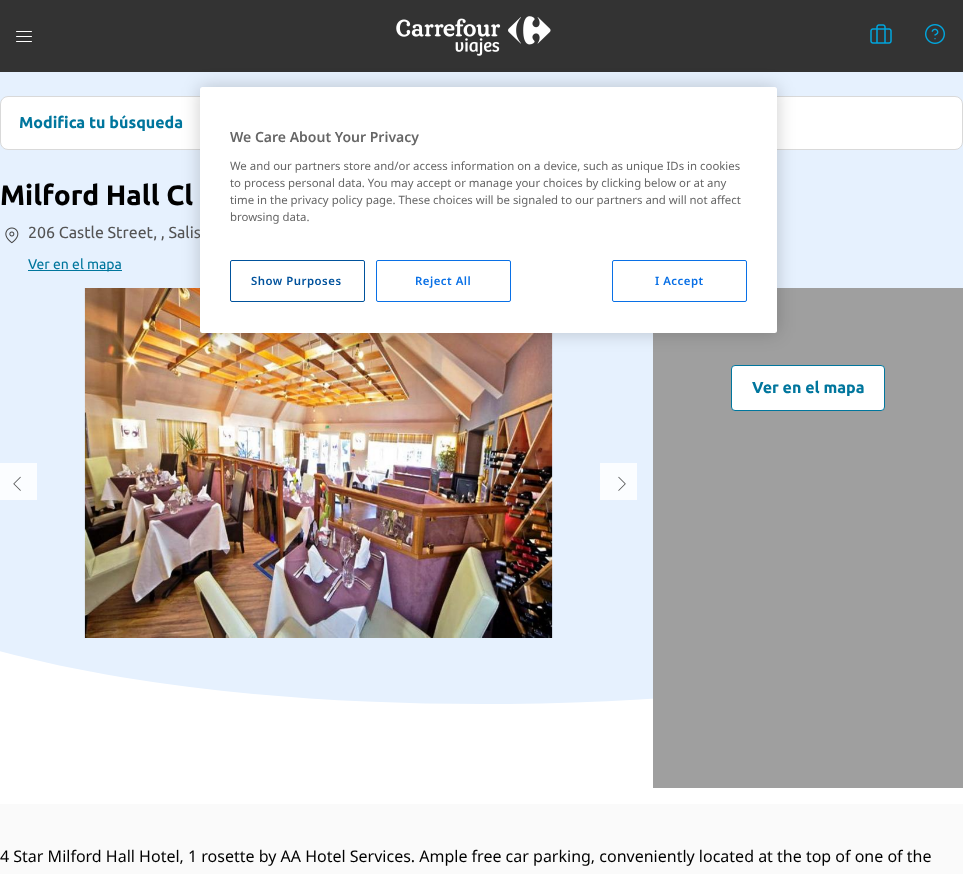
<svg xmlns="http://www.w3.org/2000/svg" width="963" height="874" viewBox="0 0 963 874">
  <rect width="100%" height="100%" fill="rgb(255,255,255)"/>
  <rect x="0" y="0" width="963" height="72" fill="rgb(51,51,51)"/>
  <rect x="16" y="31" width="16" height="1" rx="0.5" fill="rgb(255,255,255)"/>
  <rect x="16" y="36" width="16" height="1" rx="0.5" fill="rgb(255,255,255)"/>
  <rect x="16" y="41" width="16" height="1" rx="0.5" fill="rgb(255,255,255)"/>
  <image x="396" y="16" width="155" height="40" href="pic1.png"/>
  <image x="870" y="24" width="22" height="20" href="pic2.png"/>
  <image x="925" y="24" width="20" height="20" href="pic3.png"/>
  <rect x="0" y="72" width="963" height="102" fill="rgb(230,241,254)"/>
  <rect x="0.5" y="96.5" width="962" height="53" rx="7.5" fill="rgb(255,255,255)" stroke="rgb(217,217,217)"/>
  <text x="19" y="128" font-family="Ubuntu" font-size="16" font-weight="bold" fill="rgb(0,118,157)">Modifica tu búsqueda</text>
  <path d="M-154 595C-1 671 230 704 484 704C736 704 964 671 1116 596V174H-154Z" fill="rgb(230,241,254)"/>
  <image x="84" y="288" width="469" height="350" href="pic5.png"/>
  <rect x="653" y="288" width="310" height="500" fill="rgb(159,159,159)"/>
  <rect x="200" y="87" width="577" height="246" rx="2.5" fill="rgba(0,0,0,0.2)" filter="blur(9px)"/>
  <text x="28" y="238" font-family="Ubuntu" font-size="16" fill="rgb(84,84,84)">206 Castle Street, , Salis</text>
  <rect x="200" y="87" width="577" height="246" rx="2.5" fill="rgb(255,255,255)"/>
  <text x="230" y="142" font-family="Noto Sans" font-size="14" font-weight="600" fill="rgb(102,102,102)">We Care About Your Privacy</text>
  <g font-family="Noto Sans" font-size="11.4" fill="rgb(102,102,102)">
    <text>
      <tspan x="230" y="170">We and our partners store and/or access information on a device, such as unique IDs in cookies</tspan>
      <tspan x="230" y="187">to process personal data. You may accept or manage your choices by clicking below or at any</tspan>
      <tspan x="230" y="204">time in the privacy policy page. These choices will be signaled to our partners and will not affect</tspan>
      <tspan x="230" y="221">browsing data.</tspan>
    </text>
  </g>
  <rect x="230.5" y="260.5" width="134" height="41" rx="1.5" fill="none" stroke="rgb(0,82,156)"/>
  <text x="251" y="285" font-family="Noto Sans" font-size="11.4" font-weight="600" letter-spacing="0.5" fill="rgb(0,82,156)">Show Purposes</text>
  <rect x="376.5" y="260.5" width="134" height="41" rx="1.5" fill="none" stroke="rgb(9,112,230)"/>
  <text x="415" y="285" font-family="Noto Sans" font-size="11.4" font-weight="600" letter-spacing="0.5" fill="rgb(9,112,230)">Reject All</text>
  <rect x="612.5" y="260.5" width="134" height="41" rx="1.5" fill="none" stroke="rgb(9,112,230)"/>
  <text x="655" y="285" font-family="Noto Sans" font-size="11.4" font-weight="600" letter-spacing="0.5" fill="rgb(9,112,230)">I Accept</text>
  <text x="0" y="205" font-family="Ubuntu" font-size="28" font-weight="bold" fill="rgb(0,0,0)">Milford Hall Cl</text>
  <image x="5" y="227" width="14" height="17" href="pic4.png"/>
  <rect x="28" y="270" width="94" height="1" fill="rgb(0,118,157)"/>
  <text x="28" y="269" font-family="Ubuntu" font-size="14" fill="rgb(0,118,157)">Ver en el mapa</text>
  <rect x="0" y="463" width="37" height="37" fill="rgb(251,253,255)"/>
  <image x="13" y="476" width="8" height="15" href="pic6.png"/>
  <rect x="600" y="463" width="37" height="37" fill="rgb(251,253,255)"/>
  <image x="618" y="476" width="8" height="15" href="pic7.png"/>
  <rect x="731.5" y="365.5" width="153" height="45" rx="3.5" fill="rgb(255,255,255)" stroke="rgb(0,118,157)"/>
  <text x="752" y="393" font-family="Ubuntu" font-size="16" font-weight="bold" fill="rgb(0,118,157)">Ver en el mapa</text>
  <rect x="0" y="804" width="963" height="70" fill="rgb(250,250,250)"/>
  <text x="0" y="862" font-family="Noto Sans" font-size="16" fill="rgb(0,0,0)">4 Star Milford Hall Hotel, 1 rosette by AA Hotel Services. Ample free car parking, conveniently located at the top of one of the</text>
</svg>
